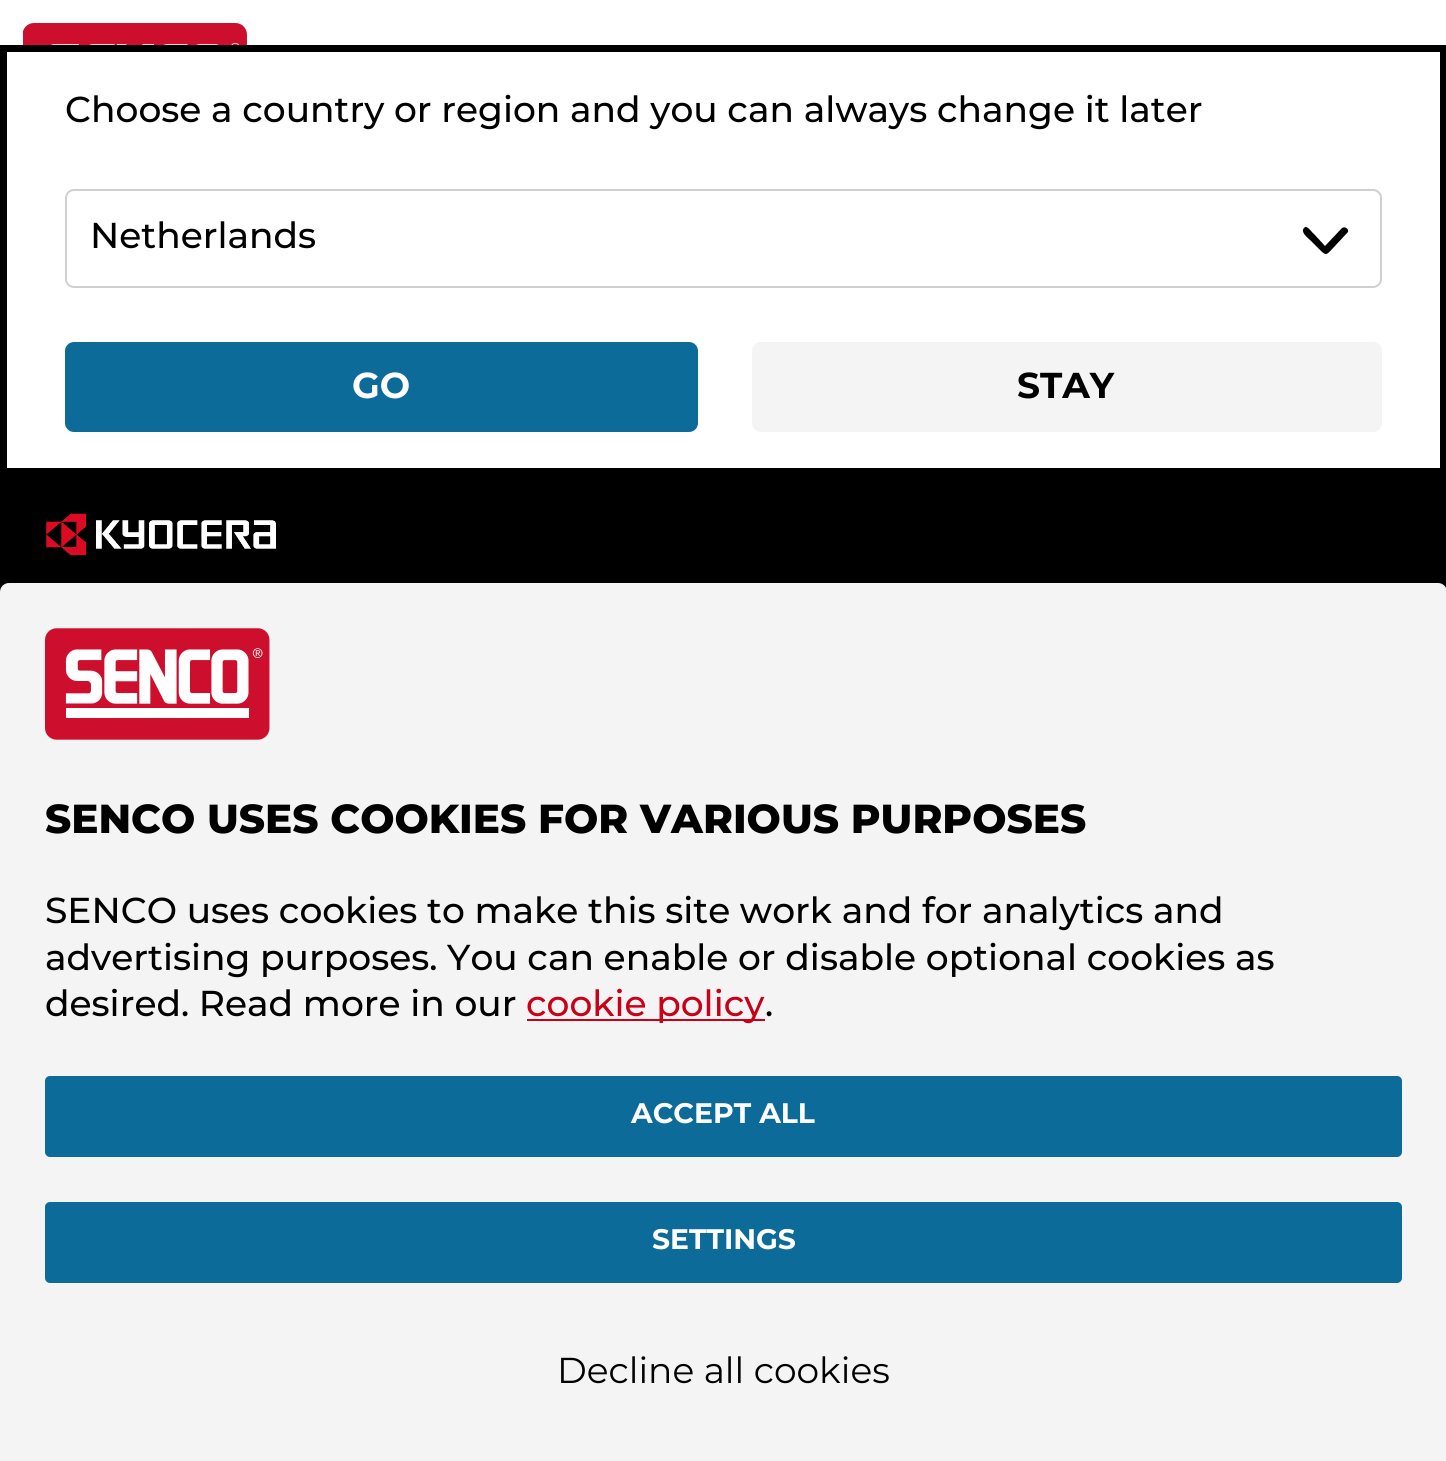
import math
import cairo



def rounded_rect(context, x, y, w, h, r):
    context.new_sub_path()
    for i, (u, v) in enumerate([(x + w - r, y + h - r), (x + r, y + h - r), (x + r, y + r), (x + w - r, y + r)]):
        context.arc(u, v, r, i * math.pi / 2, (i + 1) * math.pi / 2)
    context.close_path()


def draw_image(context, path, x, y, w, h):
    context.save()
    context.set_source_surface(cairo.ImageSurface.create_from_png(path), x, y)
    context.rectangle(x, y, w, h)
    context.fill()
    context.restore()


def draw(context):
    context.set_source_rgb(0, 0, 0)
    context.paint()
    context.set_source_rgb(1, 1, 1)
    context.rectangle(0, 0, 1446, 45)
    context.fill()
    draw_image(context, "images/1.png", 23, 23, 224, 22)
    context.rectangle(7, 52, 1433, 416)
    context.fill()
    rounded_rect(context, 66, 190, 1315, 97, 8)
    context.set_source_rgb(208 / 255, 208 / 255, 208 / 255)
    context.stroke()
    context.set_source_rgb(0, 0, 0)
    context.set_fill_rule(cairo.FillRule.EVEN_ODD)
    context.new_path()
    context.move_to(1304, 228)
    context.curve_to(1307, 224, 1312, 233, 1314, 234)
    context.line_to(1325, 246)
    context.line_to(1342, 228)
    context.curve_to(1345, 226, 1349, 229, 1348, 232)
    context.line_to(1334, 247)
    context.curve_to(1327, 254, 1327, 257, 1320, 250)
    context.line_to(1310, 240)
    context.curve_to(1308, 238, 1300, 232, 1304, 228)
    context.close_path()
    context.fill()
    context.set_source_rgb(12 / 255, 107 / 255, 153 / 255)
    rounded_rect(context, 65, 342, 633, 90, 9)
    context.fill()
    context.set_source_rgb(244 / 255, 244 / 255, 244 / 255)
    rounded_rect(context, 752, 342, 630, 90, 9)
    context.fill()
    draw_image(context, "images/2.png", 46, 513, 230, 43)
    context.new_path()
    context.move_to(9, 583)
    context.line_to(1438, 583)
    context.curve_to(1443, 583, 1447, 587, 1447, 592)
    context.line_to(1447, 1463)
    context.line_to(0, 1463)
    context.line_to(0, 592)
    context.curve_to(0, 587, 4, 583, 9, 583)
    context.close_path()
    context.fill()
    draw_image(context, "images/3.png", 45, 628, 225, 112)
    context.set_source_rgb(201 / 255, 0, 23 / 255)
    context.rectangle(527, 1019, 238, 2)
    context.fill()
    context.set_source_rgb(12 / 255, 107 / 255, 153 / 255)
    rounded_rect(context, 45, 1076, 1357, 81, 5)
    context.fill()
    rounded_rect(context, 45, 1202, 1357, 81, 5)
    context.fill()
    context.select_font_face("Montserrat Medium")
    context.set_font_size(36)
    context.set_source_rgb(0, 0, 0)
    context.move_to(65, 122)
    context.show_text("Choose a country or region and you can always change it later")
    context.move_to(90, 248)
    context.show_text("Netherlands")
    context.select_font_face("Montserrat", cairo.FontSlant.NORMAL, cairo.FontWeight.BOLD)
    context.set_source_rgb(1, 1, 1)
    context.move_to(352, 398)
    context.show_text("GO")
    context.set_source_rgb(0, 0, 0)
    context.move_to(1017, 398)
    context.show_text("STAY")
    context.select_font_face("Montserrat ExtraBold")
    context.set_font_size(40.5)
    context.move_to(45, 833)
    context.show_text("SENCO USES COOKIES FOR VARIOUS PURPOSES")
    context.select_font_face("Montserrat Medium")
    context.set_font_size(36)
    context.move_to(45, 923)
    context.show_text("SENCO uses cookies to make this site work and for analytics and")
    context.move_to(45, 970)
    context.show_text("advertising purposes. You can enable or disable optional cookies as")
    context.move_to(45, 1016)
    context.show_text("desired. Read more in our")
    context.set_source_rgb(201 / 255, 0, 23 / 255)
    context.move_to(526, 1016)
    context.show_text("cookie policy")
    context.set_source_rgb(0, 0, 0)
    context.move_to(765, 1016)
    context.show_text(".")
    context.select_font_face("Montserrat", cairo.FontSlant.NORMAL, cairo.FontWeight.BOLD)
    context.set_font_size(28.25)
    context.set_source_rgb(1, 1, 1)
    context.move_to(631, 1123)
    context.show_text("ACCEPT ALL")
    context.move_to(652, 1249)
    context.show_text("SETTINGS")
    context.select_font_face("Montserrat")
    context.set_font_size(36)
    context.set_source_rgb(0, 0, 0)
    context.move_to(557, 1383)
    context.show_text("Decline all cookies")


surface = cairo.ImageSurface(cairo.Format.RGB24, 1446, 1461)
context = cairo.Context(surface)
options = cairo.FontOptions()
options.set_hint_metrics(cairo.HintMetrics.OFF)
options.set_hint_style(cairo.HintStyle.NONE)
context.set_font_options(options)
context.set_miter_limit(4)
draw(context)
surface.write_to_png("out.png")
